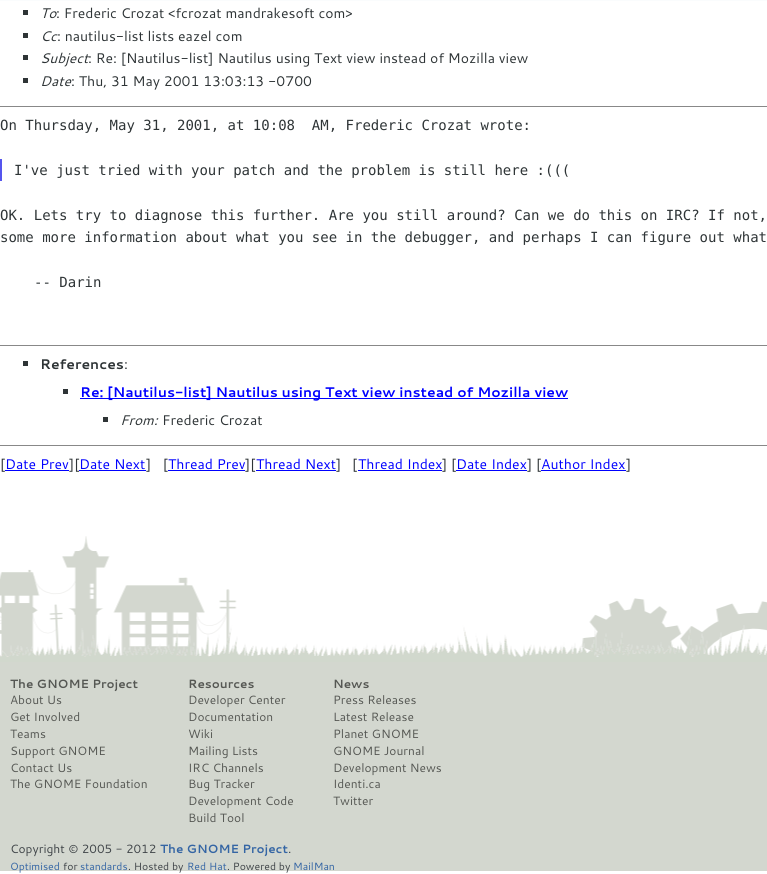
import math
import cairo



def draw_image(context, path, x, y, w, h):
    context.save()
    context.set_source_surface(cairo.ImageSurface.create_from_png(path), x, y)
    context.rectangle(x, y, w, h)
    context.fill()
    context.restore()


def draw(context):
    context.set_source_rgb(1, 1, 1)
    context.paint()
    context.set_source_rgb(250 / 255, 252 / 255, 253 / 255)
    context.rectangle(0, 0, 767, 1)
    context.fill()
    context.set_source_rgb(46 / 255, 52 / 255, 54 / 255)
    context.rectangle(23, 10, 5, 5)
    context.fill()
    context.rectangle(23, 33, 5, 5)
    context.fill()
    context.rectangle(23, 55, 5, 5)
    context.fill()
    context.rectangle(23, 78, 5, 5)
    context.fill()
    context.set_source_rgb(136 / 255, 136 / 255, 136 / 255)
    context.rectangle(0, 106, 767, 1)
    context.fill()
    context.set_source_rgb(85 / 255, 85 / 255, 238 / 255)
    context.rectangle(0, 159, 2, 22)
    context.fill()
    context.set_source_rgb(136 / 255, 136 / 255, 136 / 255)
    context.rectangle(0, 345, 767, 1)
    context.fill()
    context.set_source_rgb(46 / 255, 52 / 255, 54 / 255)
    context.rectangle(23, 361, 5, 5)
    context.fill()
    context.rectangle(63, 389, 5, 5)
    context.fill()
    context.set_source_rgb(0, 0, 1)
    context.rectangle(80, 398, 488, 1)
    context.fill()
    context.set_source_rgb(46 / 255, 52 / 255, 54 / 255)
    context.rectangle(103, 417, 5, 5)
    context.fill()
    context.set_source_rgb(136 / 255, 136 / 255, 136 / 255)
    context.rectangle(0, 445, 767, 1)
    context.fill()
    context.set_source_rgb(0, 0, 1)
    context.rectangle(5, 470, 64, 1)
    context.fill()
    context.rectangle(168, 470, 77, 1)
    context.fill()
    context.rectangle(256, 470, 80, 1)
    context.fill()
    context.rectangle(358, 470, 84, 1)
    context.fill()
    context.rectangle(456, 470, 71, 1)
    context.fill()
    context.rectangle(541, 470, 85, 1)
    context.fill()
    draw_image(context, "images/1.png", 0, 536, 767, 120)
    draw_image(context, "images/2.png", 0, 625, 767, 37)
    context.set_source_rgb(211 / 255, 215 / 255, 207 / 255)
    context.rectangle(0, 662, 767, 209)
    context.fill()
    context.select_font_face("Cantarell", cairo.FontSlant.ITALIC)
    context.set_font_size(14)
    context.set_source_rgb(46 / 255, 52 / 255, 54 / 255)
    context.move_to(40, 18)
    context.show_text("To")
    context.select_font_face("Cantarell")
    context.move_to(56, 18)
    context.show_text(": Frederic Crozat <fcrozat mandrakesoft com>")
    context.select_font_face("Cantarell", cairo.FontSlant.ITALIC)
    context.move_to(40, 41)
    context.show_text("Cc")
    context.select_font_face("Cantarell")
    context.move_to(57, 41)
    context.show_text(": nautilus-list lists eazel com")
    context.select_font_face("Cantarell", cairo.FontSlant.ITALIC)
    context.move_to(40, 63)
    context.show_text("Subject")
    context.select_font_face("Cantarell")
    context.move_to(88, 63)
    context.show_text(": Re: [Nautilus-list] Nautilus using Text view instead of Mozilla view")
    context.select_font_face("Cantarell", cairo.FontSlant.ITALIC)
    context.move_to(40, 86)
    context.show_text("Date")
    context.select_font_face("Cantarell")
    context.move_to(71, 86)
    context.show_text(": Thu, 31 May 2001 13:03:13 -0700")
    context.select_font_face("DejaVu Sans Mono")
    context.move_to(0, 130)
    context.show_text("On Thursday, May 31, 2001, at 10:08  AM, Frederic Crozat wrote:")
    context.move_to(14, 175)
    context.show_text("I've just tried with your patch and the problem is still here :(((")
    context.move_to(0, 220)
    context.show_text("OK. Lets try to diagnose this further. Are you still around? Can we do this on IRC? If not,")
    context.move_to(0, 242)
    context.show_text("some more information about what you see in the debugger, and perhaps I can figure out what")
    context.move_to(34, 287)
    context.show_text("-- Darin")
    context.select_font_face("Cantarell", cairo.FontSlant.NORMAL, cairo.FontWeight.BOLD)
    context.move_to(40, 369)
    context.show_text("References")
    context.select_font_face("Cantarell")
    context.move_to(124, 369)
    context.show_text(":")
    context.select_font_face("Cantarell", cairo.FontSlant.NORMAL, cairo.FontWeight.BOLD)
    context.set_source_rgb(0, 0, 1)
    context.move_to(80, 397)
    context.show_text("Re: [Nautilus-list] Nautilus using Text view instead of Mozilla view")
    context.select_font_face("Cantarell", cairo.FontSlant.ITALIC)
    context.set_source_rgb(46 / 255, 52 / 255, 54 / 255)
    context.move_to(120, 425)
    context.show_text("From:")
    context.select_font_face("Cantarell")
    context.move_to(162, 425)
    context.show_text("Frederic Crozat")
    context.move_to(0, 469)
    context.show_text("[")
    context.set_source_rgb(0, 0, 1)
    context.move_to(5, 469)
    context.show_text("Date Prev")
    context.set_source_rgb(46 / 255, 52 / 255, 54 / 255)
    context.move_to(69, 469)
    context.show_text("][")
    context.set_source_rgb(0, 0, 1)
    context.move_to(79, 469)
    context.show_text("Date Next")
    context.rectangle(79, 470, 67, 1)
    context.fill()
    context.set_source_rgb(46 / 255, 52 / 255, 54 / 255)
    context.move_to(146, 469)
    context.show_text("]   [")
    context.set_source_rgb(0, 0, 1)
    context.move_to(168, 469)
    context.show_text("Thread Prev")
    context.set_source_rgb(46 / 255, 52 / 255, 54 / 255)
    context.move_to(245, 469)
    context.show_text("][")
    context.set_source_rgb(0, 0, 1)
    context.move_to(256, 469)
    context.show_text("Thread Next")
    context.set_source_rgb(46 / 255, 52 / 255, 54 / 255)
    context.move_to(336, 469)
    context.show_text("]")
    context.move_to(352, 469)
    context.show_text("[")
    context.set_source_rgb(0, 0, 1)
    context.move_to(358, 469)
    context.show_text("Thread Index")
    context.set_source_rgb(46 / 255, 52 / 255, 54 / 255)
    context.move_to(442, 469)
    context.show_text("] [")
    context.set_source_rgb(0, 0, 1)
    context.move_to(456, 469)
    context.show_text("Date Index")
    context.set_source_rgb(46 / 255, 52 / 255, 54 / 255)
    context.move_to(527, 469)
    context.show_text("] [")
    context.set_source_rgb(0, 0, 1)
    context.move_to(541, 469)
    context.show_text("Author Index")
    context.set_source_rgb(46 / 255, 52 / 255, 54 / 255)
    context.move_to(626, 469)
    context.show_text("]")
    context.select_font_face("Cantarell", cairo.FontSlant.NORMAL, cairo.FontWeight.BOLD)
    context.set_font_size(12)
    context.set_source_rgb(85 / 255, 87 / 255, 83 / 255)
    context.move_to(10, 688)
    context.show_text("The GNOME Project")
    context.select_font_face("Cantarell")
    context.move_to(10, 704)
    context.show_text("About Us")
    context.move_to(10, 721)
    context.show_text("Get Involved")
    context.move_to(10, 738)
    context.show_text("Teams")
    context.move_to(10, 755)
    context.show_text("Support GNOME")
    context.move_to(10, 772)
    context.show_text("Contact Us")
    context.move_to(10, 788)
    context.show_text("The GNOME Foundation")
    context.select_font_face("Cantarell", cairo.FontSlant.NORMAL, cairo.FontWeight.BOLD)
    context.move_to(188, 688)
    context.show_text("Resources")
    context.select_font_face("Cantarell")
    context.move_to(188, 704)
    context.show_text("Developer Center")
    context.move_to(188, 721)
    context.show_text("Documentation")
    context.move_to(188, 738)
    context.show_text("Wiki")
    context.move_to(188, 755)
    context.show_text("Mailing Lists")
    context.move_to(188, 772)
    context.show_text("IRC Channels")
    context.move_to(188, 788)
    context.show_text("Bug Tracker")
    context.move_to(188, 805)
    context.show_text("Development Code")
    context.move_to(188, 822)
    context.show_text("Build Tool")
    context.select_font_face("Cantarell", cairo.FontSlant.NORMAL, cairo.FontWeight.BOLD)
    context.move_to(333, 688)
    context.show_text("News")
    context.select_font_face("Cantarell")
    context.move_to(333, 704)
    context.show_text("Press Releases")
    context.move_to(333, 721)
    context.show_text("Latest Release")
    context.move_to(333, 738)
    context.show_text("Planet GNOME")
    context.move_to(333, 755)
    context.show_text("GNOME Journal")
    context.move_to(333, 772)
    context.show_text("Development News")
    context.move_to(333, 788)
    context.show_text("Identi.ca")
    context.move_to(333, 805)
    context.show_text("Twitter")
    context.set_source_rgb(63 / 255, 68 / 255, 72 / 255)
    context.move_to(10, 853)
    context.show_text("Copyright © 2005 - 2012")
    context.select_font_face("Cantarell", cairo.FontSlant.NORMAL, cairo.FontWeight.BOLD)
    context.set_source_rgb(52 / 255, 101 / 255, 164 / 255)
    context.move_to(160, 853)
    context.show_text("The GNOME Project")
    context.select_font_face("Cantarell")
    context.set_source_rgb(63 / 255, 68 / 255, 72 / 255)
    context.move_to(288, 853)
    context.show_text(".")
    context.set_font_size(10.5)
    context.set_source_rgb(52 / 255, 101 / 255, 164 / 255)
    context.move_to(10, 870)
    context.show_text("Optimised")
    context.set_source_rgb(63 / 255, 68 / 255, 72 / 255)
    context.move_to(63, 870)
    context.show_text("for")
    context.set_source_rgb(52 / 255, 101 / 255, 164 / 255)
    context.move_to(80, 870)
    context.show_text("standards")
    context.set_source_rgb(63 / 255, 68 / 255, 72 / 255)
    context.move_to(128, 870)
    context.show_text(". Hosted by")
    context.set_source_rgb(52 / 255, 101 / 255, 164 / 255)
    context.move_to(187, 870)
    context.show_text("Red Hat")
    context.set_source_rgb(63 / 255, 68 / 255, 72 / 255)
    context.move_to(227, 870)
    context.show_text(". Powered by")
    context.set_source_rgb(52 / 255, 101 / 255, 164 / 255)
    context.move_to(293, 870)
    context.show_text("MailMan")


surface = cairo.ImageSurface(cairo.Format.RGB24, 767, 874)
context = cairo.Context(surface)
options = cairo.FontOptions()
options.set_hint_metrics(cairo.HintMetrics.OFF)
options.set_hint_style(cairo.HintStyle.NONE)
context.set_font_options(options)
context.set_miter_limit(4)
draw(context)
surface.write_to_png("out.png")
